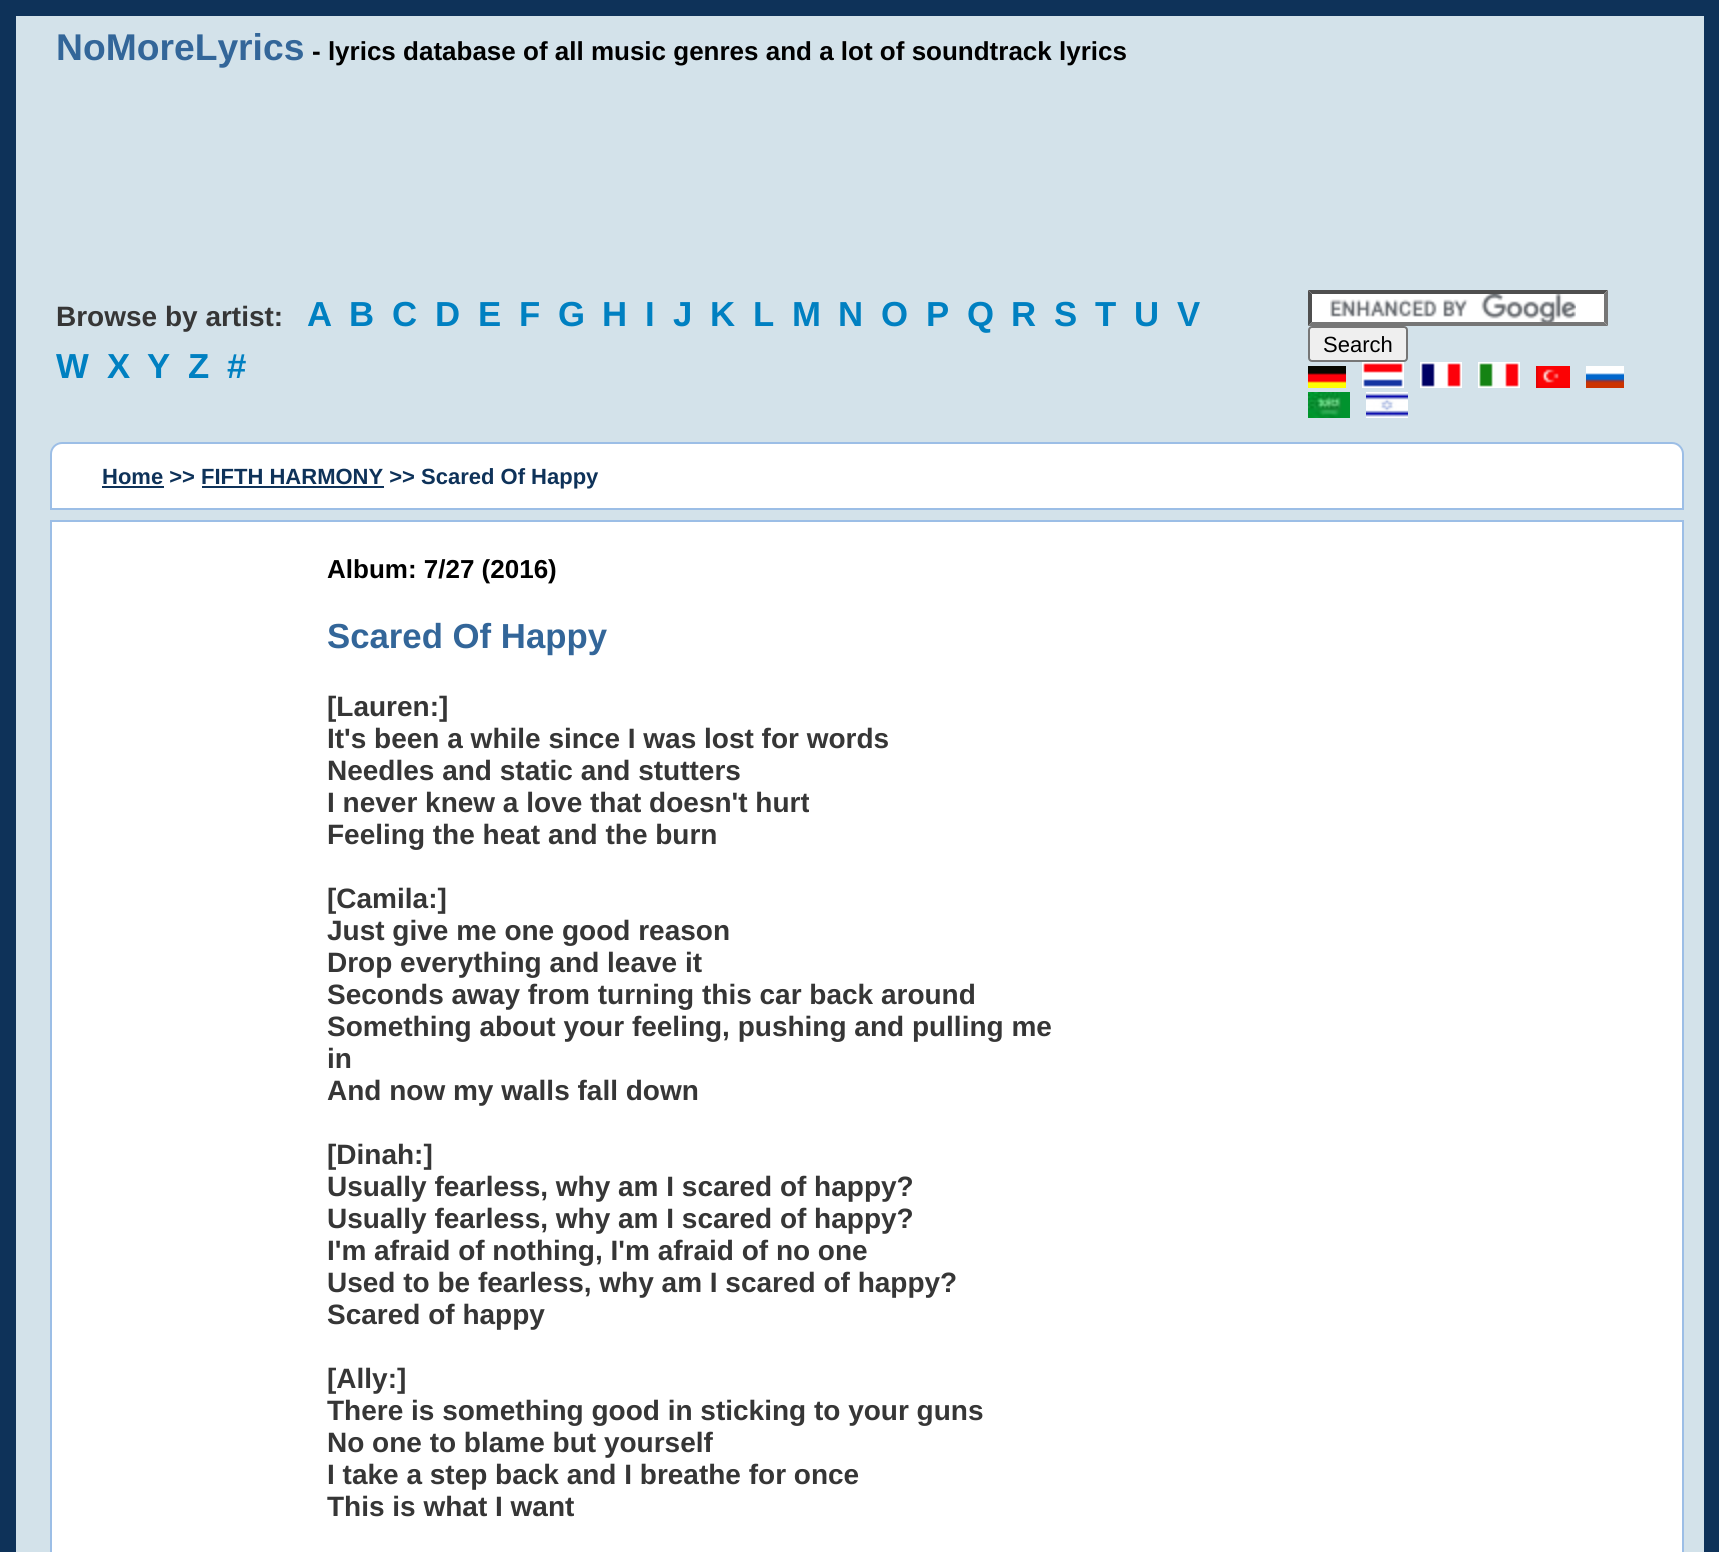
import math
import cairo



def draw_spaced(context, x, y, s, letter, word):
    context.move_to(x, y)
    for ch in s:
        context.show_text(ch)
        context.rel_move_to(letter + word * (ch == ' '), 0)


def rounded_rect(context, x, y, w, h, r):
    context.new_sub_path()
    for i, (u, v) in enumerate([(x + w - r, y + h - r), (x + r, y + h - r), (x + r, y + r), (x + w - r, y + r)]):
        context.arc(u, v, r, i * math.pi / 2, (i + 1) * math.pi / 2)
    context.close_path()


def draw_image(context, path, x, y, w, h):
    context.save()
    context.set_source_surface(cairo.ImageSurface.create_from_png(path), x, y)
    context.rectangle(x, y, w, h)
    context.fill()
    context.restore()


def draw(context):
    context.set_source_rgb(14 / 255, 50 / 255, 89 / 255)
    context.paint()
    context.set_source_rgb(211 / 255, 226 / 255, 234 / 255)
    context.rectangle(16, 16, 1688, 1536)
    context.fill()
    context.set_source_rgb(1, 1, 1)
    context.rectangle(1308, 290, 300, 36)
    context.fill()
    draw_image(context, "images/1.png", 1330, 294, 246, 28)
    context.set_source_rgb(79 / 255, 79 / 255, 79 / 255)
    context.new_path()
    context.move_to(1308, 290)
    context.line_to(1608, 290)
    context.line_to(1604, 294)
    context.line_to(1312, 294)
    context.close_path()
    context.fill()
    context.set_source_rgb(118 / 255, 118 / 255, 118 / 255)
    context.new_path()
    context.move_to(1608, 290)
    context.line_to(1608, 326)
    context.line_to(1604, 322)
    context.line_to(1604, 294)
    context.close_path()
    context.fill()
    context.new_path()
    context.move_to(1608, 326)
    context.line_to(1308, 326)
    context.line_to(1312, 322)
    context.line_to(1604, 322)
    context.close_path()
    context.fill()
    context.set_source_rgb(79 / 255, 79 / 255, 79 / 255)
    context.new_path()
    context.move_to(1308, 326)
    context.line_to(1308, 290)
    context.line_to(1312, 294)
    context.line_to(1312, 322)
    context.close_path()
    context.fill()
    context.set_source_rgb(239 / 255, 239 / 255, 239 / 255)
    rounded_rect(context, 1309, 327, 98, 34, 3)
    context.fill_preserve()
    context.set_source_rgb(118 / 255, 118 / 255, 118 / 255)
    context.stroke()
    draw_image(context, "images/2.png", 1308, 366, 38, 22)
    draw_image(context, "images/3.png", 1362, 362, 42, 26)
    draw_image(context, "images/4.png", 1420, 362, 42, 26)
    draw_image(context, "images/5.png", 1478, 362, 42, 26)
    draw_image(context, "images/6.png", 1536, 366, 34, 22)
    draw_image(context, "images/7.png", 1586, 366, 38, 22)
    draw_image(context, "images/8.png", 1308, 392, 42, 26)
    draw_image(context, "images/9.png", 1366, 392, 42, 26)
    context.set_source_rgb(1, 1, 1)
    context.new_path()
    context.move_to(62, 443)
    context.line_to(1672, 443)
    context.curve_to(1678, 443, 1683, 448, 1683, 454)
    context.line_to(1683, 509)
    context.line_to(51, 509)
    context.line_to(51, 454)
    context.curve_to(51, 448, 56, 443, 62, 443)
    context.close_path()
    context.fill_preserve()
    context.set_source_rgb(156 / 255, 190 / 255, 230 / 255)
    context.stroke()
    context.set_source_rgb(14 / 255, 50 / 255, 89 / 255)
    context.rectangle(102, 486, 62, 2)
    context.fill()
    context.rectangle(202, 486, 182, 2)
    context.fill()
    context.set_source_rgb(1, 1, 1)
    context.rectangle(51, 521, 1632, 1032)
    context.fill_preserve()
    context.set_source_rgb(156 / 255, 190 / 255, 230 / 255)
    context.stroke()
    context.select_font_face("Liberation Sans", cairo.FontSlant.NORMAL, cairo.FontWeight.BOLD)
    context.set_font_size(37.25)
    context.set_source_rgb(51 / 255, 102 / 255, 153 / 255)
    context.move_to(56, 60)
    context.show_text("NoMoreLyrics")
    context.set_font_size(26)
    context.set_source_rgb(0, 0, 0)
    context.move_to(312, 60)
    context.show_text("- lyrics database of all music genres and a lot of soundtrack lyrics")
    context.set_font_size(28)
    context.set_source_rgb(54 / 255, 54 / 255, 54 / 255)
    context.move_to(56, 326)
    context.show_text("Browse by artist:")
    context.set_font_size(34.75)
    context.set_source_rgb(0, 128 / 255, 193 / 255)
    draw_spaced(context, 307, 326, "A", 10, 0)
    draw_spaced(context, 349, 326, "B", 10, 0)
    draw_spaced(context, 392, 326, "C", 10, 0)
    draw_spaced(context, 435, 326, "D", 10, 0)
    draw_spaced(context, 478, 326, "E", 10, 0)
    draw_spaced(context, 519, 326, "F", 10, 0)
    draw_spaced(context, 558, 326, "G", 10, 0)
    draw_spaced(context, 602, 326, "H", 10, 0)
    draw_spaced(context, 645, 326, "I", 10, 0)
    draw_spaced(context, 673, 326, "J", 10, 0)
    draw_spaced(context, 710, 326, "K", 10, 0)
    draw_spaced(context, 753, 326, "L", 10, 0)
    draw_spaced(context, 792, 326, "M", 10, 0)
    draw_spaced(context, 838, 326, "N", 10, 0)
    draw_spaced(context, 881, 326, "O", 10, 0)
    draw_spaced(context, 926, 326, "P", 10, 0)
    draw_spaced(context, 967, 326, "Q", 10, 0)
    draw_spaced(context, 1011, 326, "R", 10, 0)
    draw_spaced(context, 1054, 326, "S", 10, 0)
    draw_spaced(context, 1095, 326, "T", 10, 0)
    draw_spaced(context, 1134, 326, "U", 10, 0)
    draw_spaced(context, 1177, 326, "V", 10, 0)
    draw_spaced(context, 56, 378, "W", 10, 0)
    draw_spaced(context, 107, 378, "X", 10, 0)
    draw_spaced(context, 147, 378, "Y", 10, 0)
    draw_spaced(context, 188, 378, "Z", 10, 0)
    draw_spaced(context, 227, 378, "#", 10, 0)
    context.select_font_face("Liberation Sans")
    context.set_font_size(22)
    context.set_source_rgb(0, 0, 0)
    context.move_to(1323, 352)
    context.show_text("Search")
    context.select_font_face("Liberation Sans", cairo.FontSlant.NORMAL, cairo.FontWeight.BOLD)
    context.set_source_rgb(14 / 255, 50 / 255, 89 / 255)
    context.move_to(102, 484)
    context.show_text("Home >> FIFTH HARMONY >> Scared Of Happy")
    context.set_font_size(26)
    context.set_source_rgb(0, 0, 0)
    context.move_to(327, 578)
    context.show_text("Album: 7/27 (2016)")
    context.set_font_size(34.75)
    context.set_source_rgb(51 / 255, 102 / 255, 153 / 255)
    context.move_to(327, 648)
    context.show_text("Scared Of Happy")
    context.set_font_size(28)
    context.set_source_rgb(54 / 255, 54 / 255, 54 / 255)
    context.move_to(327, 716)
    context.show_text("[Lauren:]")
    context.move_to(327, 748)
    context.show_text("It's been a while since I was lost for words")
    context.move_to(327, 780)
    context.show_text("Needles and static and stutters")
    context.move_to(327, 812)
    context.show_text("I never knew a love that doesn't hurt")
    context.move_to(327, 844)
    context.show_text("Feeling the heat and the burn")
    context.move_to(327, 908)
    context.show_text("[Camila:]")
    context.move_to(327, 940)
    context.show_text("Just give me one good reason")
    context.move_to(327, 972)
    context.show_text("Drop everything and leave it")
    context.move_to(327, 1004)
    context.show_text("Seconds away from turning this car back around")
    context.move_to(327, 1036)
    context.show_text("Something about your feeling, pushing and pulling me")
    context.move_to(327, 1068)
    context.show_text("in")
    context.move_to(327, 1100)
    context.show_text("And now my walls fall down")
    context.move_to(327, 1164)
    context.show_text("[Dinah:]")
    context.move_to(327, 1196)
    context.show_text("Usually fearless, why am I scared of happy?")
    context.move_to(327, 1228)
    context.show_text("Usually fearless, why am I scared of happy?")
    context.move_to(327, 1260)
    context.show_text("I'm afraid of nothing, I'm afraid of no one")
    context.move_to(327, 1292)
    context.show_text("Used to be fearless, why am I scared of happy?")
    context.move_to(327, 1324)
    context.show_text("Scared of happy")
    context.move_to(327, 1388)
    context.show_text("[Ally:]")
    context.move_to(327, 1420)
    context.show_text("There is something good in sticking to your guns")
    context.move_to(327, 1452)
    context.show_text("No one to blame but yourself")
    context.move_to(327, 1484)
    context.show_text("I take a step back and I breathe for once")
    context.move_to(327, 1516)
    context.show_text("This is what I want")


surface = cairo.ImageSurface(cairo.Format.RGB24, 1719, 1552)
context = cairo.Context(surface)
options = cairo.FontOptions()
options.set_hint_metrics(cairo.HintMetrics.OFF)
options.set_hint_style(cairo.HintStyle.NONE)
context.set_font_options(options)
context.set_miter_limit(4)
draw(context)
surface.write_to_png("out.png")
